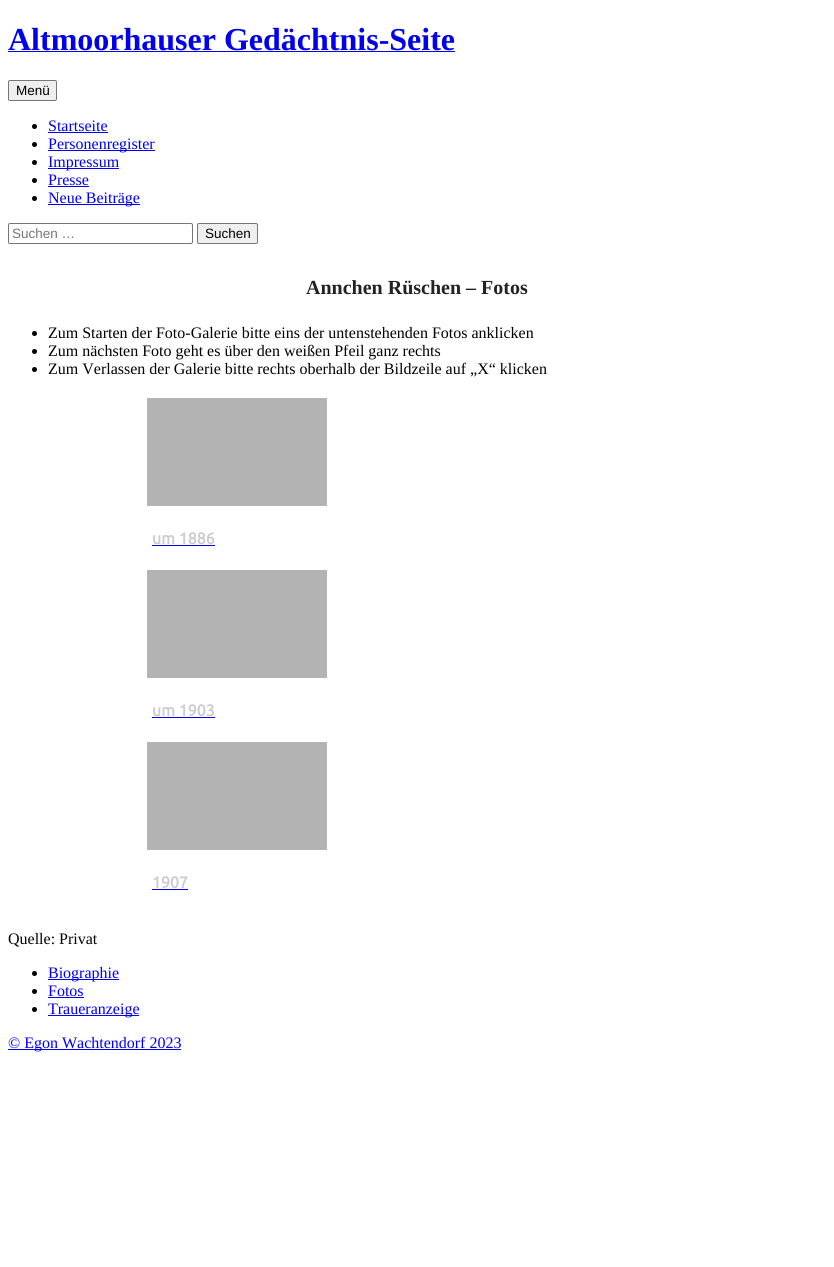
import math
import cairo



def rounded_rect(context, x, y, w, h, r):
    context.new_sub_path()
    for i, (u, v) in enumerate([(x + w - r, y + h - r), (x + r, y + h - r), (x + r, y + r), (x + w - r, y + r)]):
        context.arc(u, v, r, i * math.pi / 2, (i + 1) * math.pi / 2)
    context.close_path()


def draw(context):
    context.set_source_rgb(1, 1, 1)
    context.paint()
    context.set_source_rgb(0, 0, 238 / 255)
    context.rectangle(8, 51, 447, 1)
    context.fill()
    context.set_source_rgb(239 / 255, 239 / 255, 239 / 255)
    rounded_rect(context, 8.5, 80.5, 48, 20, 1.5)
    context.fill_preserve()
    context.set_source_rgb(118 / 255, 118 / 255, 118 / 255)
    context.set_line_width(1)
    context.stroke()
    context.set_source_rgb(0, 0, 0)
    context.arc(34.5, 126.5, 2.5, 0, 2 * math.pi)
    context.fill()
    context.set_source_rgb(0, 0, 238 / 255)
    context.rectangle(48, 132, 60, 1)
    context.fill()
    context.set_source_rgb(0, 0, 0)
    context.arc(34.5, 144.5, 2.5, 0, 2 * math.pi)
    context.fill()
    context.set_source_rgb(0, 0, 238 / 255)
    context.rectangle(48, 150, 107, 1)
    context.fill()
    context.set_source_rgb(0, 0, 0)
    context.arc(34.5, 162.5, 2.5, 0, 2 * math.pi)
    context.fill()
    context.set_source_rgb(0, 0, 238 / 255)
    context.rectangle(48, 168, 71, 1)
    context.fill()
    context.set_source_rgb(0, 0, 0)
    context.arc(34.5, 180.5, 2.5, 0, 2 * math.pi)
    context.fill()
    context.set_source_rgb(0, 0, 238 / 255)
    context.rectangle(48, 186, 41, 1)
    context.fill()
    context.set_source_rgb(0, 0, 0)
    context.arc(34.5, 198.5, 2.5, 0, 2 * math.pi)
    context.fill()
    context.set_source_rgb(0, 0, 238 / 255)
    context.rectangle(48, 204, 92, 1)
    context.fill()
    rounded_rect(context, 8.5, 223.5, 184, 20, 1.5)
    context.set_source_rgb(118 / 255, 118 / 255, 118 / 255)
    context.stroke()
    context.set_source_rgb(239 / 255, 239 / 255, 239 / 255)
    rounded_rect(context, 197.5, 223.5, 60, 20, 1.5)
    context.fill_preserve()
    context.set_source_rgb(118 / 255, 118 / 255, 118 / 255)
    context.stroke()
    context.set_source_rgb(0, 0, 0)
    context.arc(34.5, 333.5, 2.5, 0, 2 * math.pi)
    context.fill()
    context.arc(34.5, 351.5, 2.5, 0, 2 * math.pi)
    context.fill()
    context.arc(34.5, 369.5, 2.5, 0, 2 * math.pi)
    context.fill()
    context.set_source_rgb(179 / 255, 179 / 255, 179 / 255)
    context.rectangle(147, 398, 180, 108)
    context.fill()
    context.set_source_rgb(0, 0, 238 / 255)
    context.rectangle(152, 545, 63, 1)
    context.fill()
    context.set_source_rgb(179 / 255, 179 / 255, 179 / 255)
    context.rectangle(147, 570, 180, 108)
    context.fill()
    context.set_source_rgb(0, 0, 238 / 255)
    context.rectangle(152, 717, 63, 1)
    context.fill()
    context.set_source_rgb(179 / 255, 179 / 255, 179 / 255)
    context.rectangle(147, 742, 180, 108)
    context.fill()
    context.set_source_rgb(0, 0, 238 / 255)
    context.rectangle(152, 889, 36, 1)
    context.fill()
    context.set_source_rgb(0, 0, 0)
    context.arc(34.5, 973.5, 2.5, 0, 2 * math.pi)
    context.fill()
    context.set_source_rgb(0, 0, 238 / 255)
    context.rectangle(48, 979, 71, 1)
    context.fill()
    context.set_source_rgb(0, 0, 0)
    context.arc(34.5, 991.5, 2.5, 0, 2 * math.pi)
    context.fill()
    context.set_source_rgb(0, 0, 238 / 255)
    context.rectangle(48, 997, 36, 1)
    context.fill()
    context.set_source_rgb(0, 0, 0)
    context.arc(34.5, 1009.5, 2.5, 0, 2 * math.pi)
    context.fill()
    context.set_source_rgb(0, 0, 238 / 255)
    context.rectangle(48, 1015, 91, 1)
    context.fill()
    context.rectangle(8, 1049, 173, 1)
    context.fill()
    context.select_font_face("Liberation Serif", cairo.FontSlant.NORMAL, cairo.FontWeight.BOLD)
    context.set_font_size(32)
    context.move_to(8, 50)
    context.show_text("Altmoorhauser Gedächtnis-Seite")
    context.select_font_face("Liberation Sans")
    context.set_font_size(13.5)
    context.set_source_rgb(0, 0, 0)
    context.move_to(16, 95)
    context.show_text("Menü")
    context.select_font_face("Liberation Serif")
    context.set_font_size(16)
    context.set_source_rgb(0, 0, 238 / 255)
    context.move_to(48, 131)
    context.show_text("Startseite")
    context.move_to(48, 149)
    context.show_text("Personenregister")
    context.move_to(48, 167)
    context.show_text("Impressum")
    context.move_to(48, 185)
    context.show_text("Presse")
    context.move_to(48, 203)
    context.show_text("Neue Beiträge")
    context.select_font_face("Liberation Sans")
    context.set_font_size(13.5)
    context.set_source_rgb(117 / 255, 117 / 255, 117 / 255)
    context.move_to(12, 238)
    context.show_text("Suchen …")
    context.set_source_rgb(0, 0, 0)
    context.move_to(205, 238)
    context.show_text("Suchen")
    context.select_font_face("Liberation Serif", cairo.FontSlant.NORMAL, cairo.FontWeight.BOLD)
    context.set_font_size(20)
    context.set_source_rgb(34 / 255, 34 / 255, 34 / 255)
    context.move_to(306, 294)
    context.show_text("Annchen Rüschen – Fotos")
    context.select_font_face("Liberation Serif")
    context.set_font_size(16)
    context.set_source_rgb(0, 0, 0)
    context.move_to(48, 338)
    context.show_text("Zum Starten der Foto-Galerie bitte eins der untenstehenden Fotos anklicken")
    context.move_to(48, 356)
    context.show_text("Zum nächsten Foto geht es über den weißen Pfeil ganz rechts")
    context.move_to(48, 374)
    context.show_text("Zum Verlassen der Galerie bitte rechts oberhalb der Bildzeile auf „X“ klicken")
    context.select_font_face("Ubuntu", cairo.FontSlant.NORMAL, cairo.FontWeight.BOLD)
    context.set_source_rgb(204 / 255, 204 / 255, 204 / 255)
    context.move_to(152, 544)
    context.show_text("um 1886")
    context.move_to(152, 716)
    context.show_text("um 1903")
    context.move_to(152, 888)
    context.show_text("1907")
    context.select_font_face("Liberation Serif")
    context.set_source_rgb(0, 0, 0)
    context.move_to(8, 944)
    context.show_text("Quelle: Privat")
    context.set_source_rgb(0, 0, 238 / 255)
    context.move_to(48, 978)
    context.show_text("Biographie")
    context.move_to(48, 996)
    context.show_text("Fotos")
    context.move_to(48, 1014)
    context.show_text("Traueranzeige")
    context.move_to(8, 1048)
    context.show_text("© Egon Wachtendorf 2023")


surface = cairo.ImageSurface(cairo.Format.RGB24, 834, 1267)
context = cairo.Context(surface)
options = cairo.FontOptions()
options.set_hint_metrics(cairo.HintMetrics.OFF)
options.set_hint_style(cairo.HintStyle.NONE)
context.set_font_options(options)
context.set_miter_limit(4)
draw(context)
surface.write_to_png("out.png")
